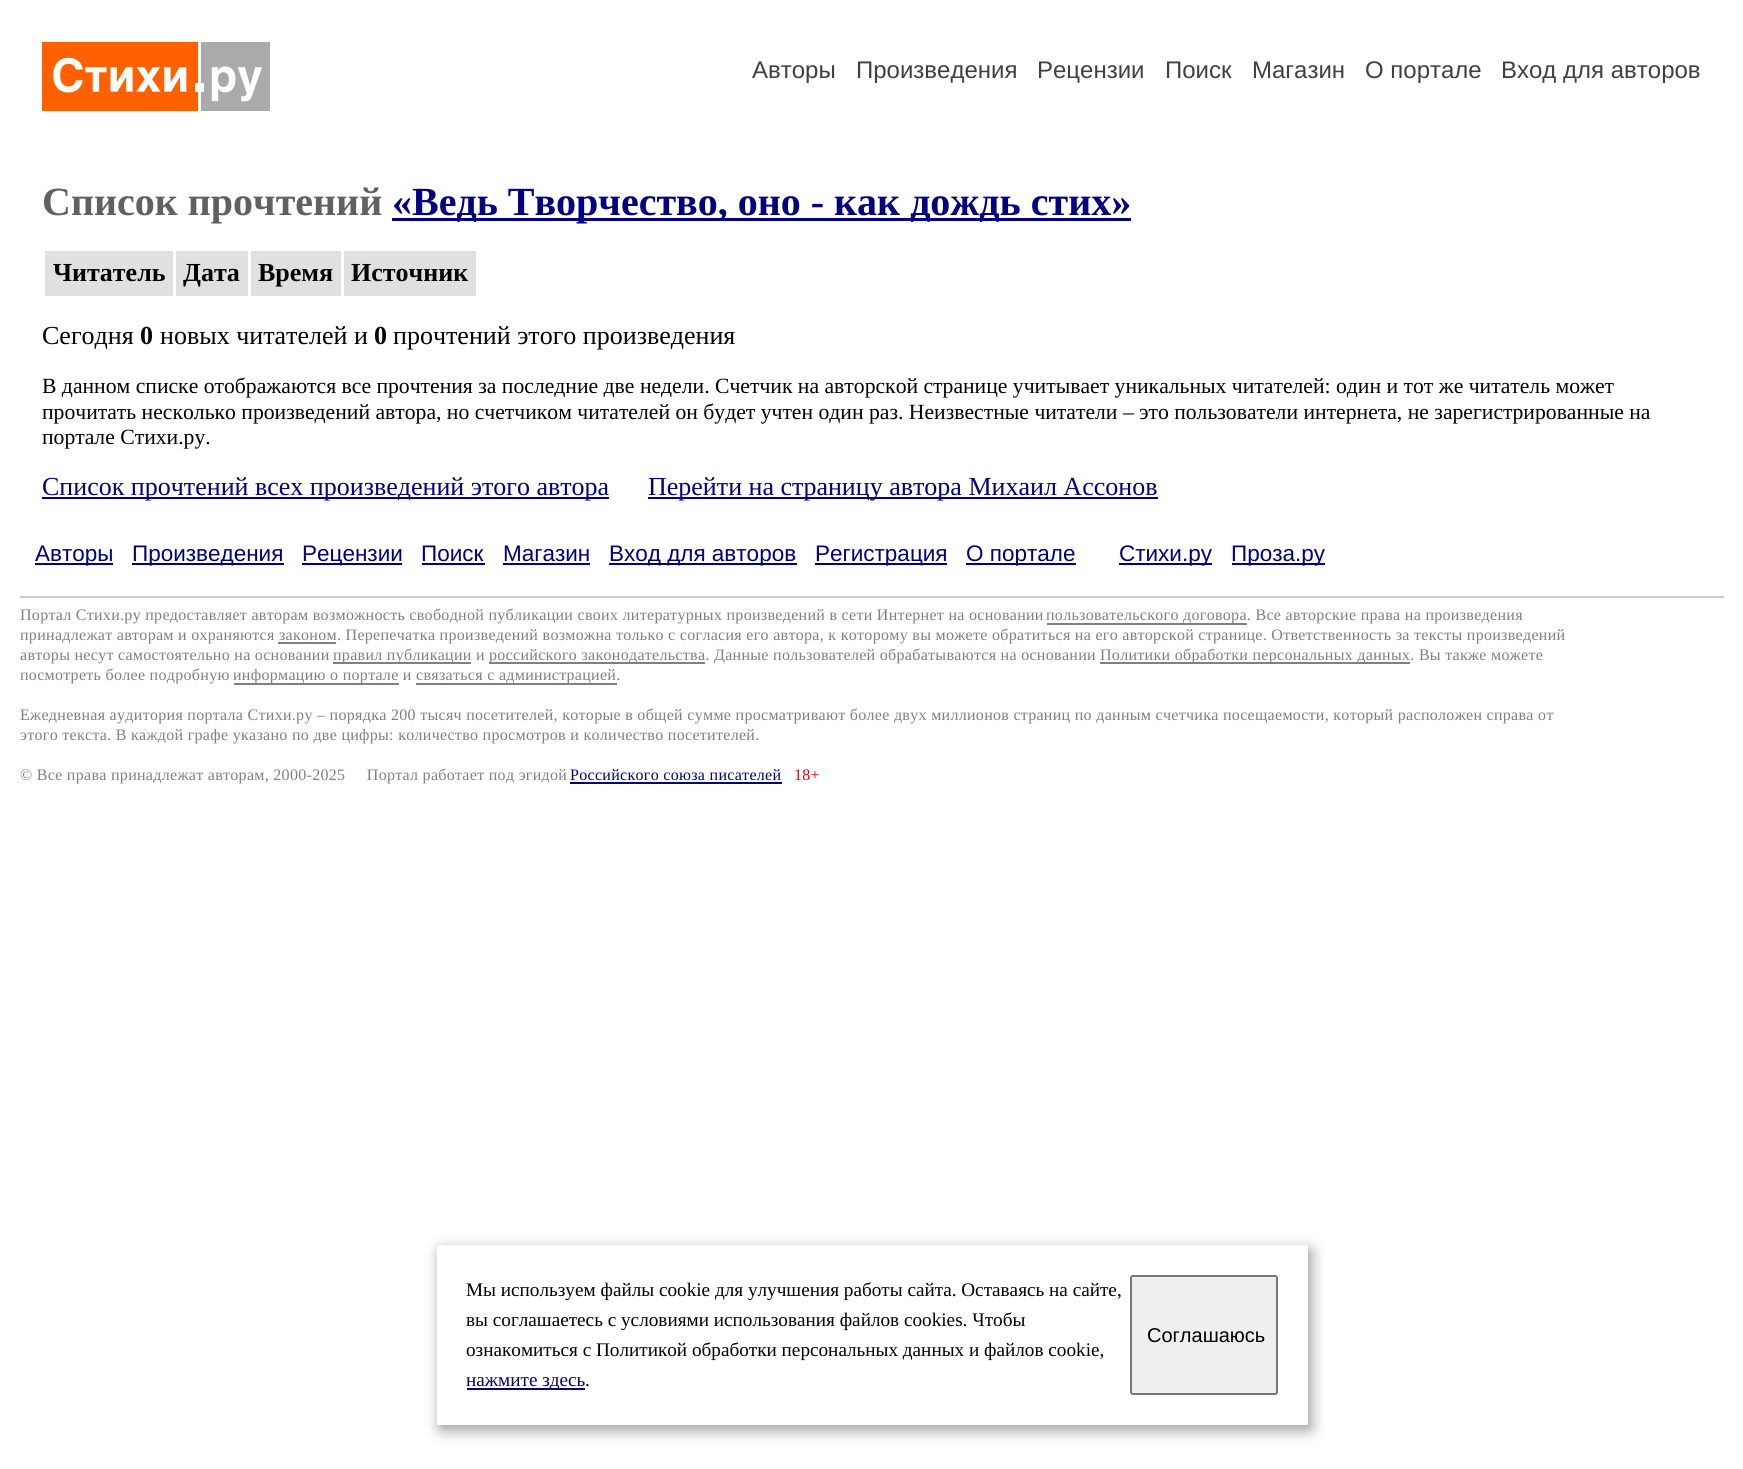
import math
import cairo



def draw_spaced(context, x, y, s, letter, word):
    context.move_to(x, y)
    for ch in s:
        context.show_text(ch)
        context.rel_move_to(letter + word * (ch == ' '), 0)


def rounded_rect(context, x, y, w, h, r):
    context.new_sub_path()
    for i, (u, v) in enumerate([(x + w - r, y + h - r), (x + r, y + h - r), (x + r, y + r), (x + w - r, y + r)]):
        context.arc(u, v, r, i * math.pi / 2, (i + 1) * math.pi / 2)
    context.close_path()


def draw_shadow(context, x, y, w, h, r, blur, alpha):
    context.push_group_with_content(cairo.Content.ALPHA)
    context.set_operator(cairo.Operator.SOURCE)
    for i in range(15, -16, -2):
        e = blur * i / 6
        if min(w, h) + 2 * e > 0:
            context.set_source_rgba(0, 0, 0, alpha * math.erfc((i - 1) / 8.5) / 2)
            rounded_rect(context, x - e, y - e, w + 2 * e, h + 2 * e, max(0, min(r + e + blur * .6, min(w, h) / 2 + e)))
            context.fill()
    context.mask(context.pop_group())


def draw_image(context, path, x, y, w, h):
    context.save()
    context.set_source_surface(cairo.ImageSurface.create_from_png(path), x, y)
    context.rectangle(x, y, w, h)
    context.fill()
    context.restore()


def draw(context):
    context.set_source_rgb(1, 1, 1)
    context.paint()
    draw_image(context, "images/1.png", 42, 42, 228, 69)
    context.set_source_rgb(0, 0, 128 / 255)
    context.rectangle(392, 218, 739, 3)
    context.fill()
    context.set_source_rgb(224 / 255, 224 / 255, 224 / 255)
    context.rectangle(45, 251, 128, 45)
    context.fill()
    context.rectangle(176, 251, 72, 45)
    context.fill()
    context.rectangle(251, 251, 90, 45)
    context.fill()
    context.rectangle(344, 251, 132, 45)
    context.fill()
    context.set_source_rgb(0, 0, 128 / 255)
    context.rectangle(42, 497, 567, 2)
    context.fill()
    context.rectangle(648, 497, 510, 2)
    context.fill()
    context.set_source_rgb(0, 0, 0)
    draw_shadow(context, 440, 1250, 871, 180, 1.5, 7.5, 0.4)
    context.set_source_rgb(1, 1, 1)
    rounded_rect(context, 437, 1245, 871, 180, 1.5)
    context.fill()
    context.set_source_rgb(0, 0, 128 / 255)
    context.rectangle(467, 1388, 118, 2)
    context.fill()
    context.set_source_rgb(239 / 255, 239 / 255, 239 / 255)
    rounded_rect(context, 1131, 1276, 146, 118, 2)
    context.fill_preserve()
    context.set_source_rgb(118 / 255, 118 / 255, 118 / 255)
    context.stroke()
    context.set_source_rgb(0, 0, 128 / 255)
    context.rectangle(35, 563, 78, 2)
    context.fill()
    context.rectangle(132, 563, 152, 2)
    context.fill()
    context.rectangle(302, 563, 100, 2)
    context.fill()
    context.rectangle(422, 563, 63, 2)
    context.fill()
    context.rectangle(503, 563, 87, 2)
    context.fill()
    context.rectangle(609, 563, 188, 2)
    context.fill()
    context.rectangle(815, 563, 132, 2)
    context.fill()
    context.rectangle(966, 563, 110, 2)
    context.fill()
    context.rectangle(1119, 563, 93, 2)
    context.fill()
    context.rectangle(1232, 563, 93, 2)
    context.fill()
    context.set_source_rgb(204 / 255, 204 / 255, 204 / 255)
    context.rectangle(20, 596, 1704, 2)
    context.fill()
    context.set_source_rgb(128 / 255, 128 / 255, 128 / 255)
    context.rectangle(1047, 623, 200, 2)
    context.fill()
    context.rectangle(278, 642, 58, 2)
    context.fill()
    context.rectangle(333, 662, 138, 2)
    context.fill()
    context.rectangle(489, 662, 216, 2)
    context.fill()
    context.rectangle(1100, 662, 310, 2)
    context.fill()
    context.rectangle(234, 683, 165, 2)
    context.fill()
    context.rectangle(416, 683, 201, 2)
    context.fill()
    context.set_source_rgb(0, 0, 128 / 255)
    context.rectangle(570, 782, 212, 2)
    context.fill()
    context.select_font_face("Liberation Sans")
    context.set_font_size(24)
    context.set_source_rgb(64 / 255, 64 / 255, 64 / 255)
    context.move_to(752, 78)
    context.show_text("Авторы")
    context.move_to(856, 78)
    context.show_text("Произведения")
    context.move_to(1037, 78)
    context.show_text("Рецензии")
    context.move_to(1165, 78)
    context.show_text("Поиск")
    context.move_to(1252, 78)
    context.show_text("Магазин")
    context.move_to(1365, 78)
    context.show_text("О портале")
    context.move_to(1501, 78)
    context.show_text("Вход для авторов")
    context.select_font_face("Liberation Serif", cairo.FontSlant.NORMAL, cairo.FontWeight.BOLD)
    context.set_font_size(40)
    context.set_source_rgb(96 / 255, 96 / 255, 96 / 255)
    context.move_to(42, 215)
    context.show_text("Список прочтений")
    context.set_source_rgb(0, 0, 128 / 255)
    context.move_to(392, 215)
    context.show_text("«Ведь Творчество, оно - как дождь стих»")
    context.set_font_size(26)
    context.set_source_rgb(0, 0, 0)
    context.move_to(53, 281)
    context.show_text("Читатель")
    context.move_to(183, 281)
    context.show_text("Дата")
    context.move_to(258, 281)
    context.show_text("Время")
    context.move_to(351, 281)
    context.show_text("Источник")
    context.select_font_face("Liberation Serif")
    context.move_to(42, 344)
    context.show_text("Сегодня")
    context.select_font_face("Liberation Serif", cairo.FontSlant.NORMAL, cairo.FontWeight.BOLD)
    context.move_to(140, 344)
    context.show_text("0")
    context.select_font_face("Liberation Serif")
    context.move_to(160, 344)
    context.show_text("новых читателей и")
    context.select_font_face("Liberation Serif", cairo.FontSlant.NORMAL, cairo.FontWeight.BOLD)
    context.move_to(374, 344)
    context.show_text("0")
    context.select_font_face("Liberation Serif")
    context.move_to(393, 344)
    context.show_text("прочтений этого произведения")
    context.set_font_size(21.67)
    context.move_to(42, 393)
    context.show_text("В данном списке отображаются все прочтения за последние две недели. Счетчик на авторской странице учитывает уникальных читателей: один и тот же читатель может")
    context.move_to(42, 419)
    context.show_text("прочитать несколько произведений автора, но счетчиком читателей он будет учтен один раз. Неизвестные читатели – это пользователи интернета, не зарегистрированные на")
    context.move_to(42, 444)
    context.show_text("портале Стихи.ру.")
    context.set_font_size(26)
    context.set_source_rgb(0, 0, 128 / 255)
    context.move_to(42, 495)
    context.show_text("Список прочтений всех произведений этого автора")
    context.move_to(648, 495)
    context.show_text("Перейти на страницу автора Михаил Ассонов")
    context.set_font_size(19.2)
    context.set_source_rgb(0, 0, 0)
    context.move_to(466, 1296)
    context.show_text("Мы используем файлы cookie для улучшения работы сайта. Оставаясь на сайте,")
    context.move_to(466, 1326)
    context.show_text("вы соглашаетесь с условиями использования файлов cookies. Чтобы")
    context.move_to(466, 1356)
    context.show_text("ознакомиться с Политикой обработки персональных данных и файлов cookie,")
    context.set_source_rgb(0, 0, 128 / 255)
    context.move_to(466, 1386)
    context.show_text("нажмите здесь")
    context.set_source_rgb(0, 0, 0)
    context.move_to(585, 1386)
    context.show_text(".")
    context.select_font_face("Liberation Sans")
    context.set_font_size(20)
    context.move_to(1147, 1342)
    context.show_text("Соглашаюсь")
    context.set_font_size(22.5)
    context.set_source_rgb(0, 0, 128 / 255)
    context.move_to(35, 561)
    context.show_text("Авторы")
    context.move_to(132, 561)
    context.show_text("Произведения")
    context.move_to(302, 561)
    context.show_text("Рецензии")
    context.move_to(421, 561)
    context.show_text("Поиск")
    context.move_to(503, 561)
    context.show_text("Магазин")
    context.move_to(609, 561)
    context.show_text("Вход для авторов")
    context.move_to(815, 561)
    context.show_text("Регистрация")
    context.move_to(966, 561)
    context.show_text("О портале")
    context.move_to(1119, 561)
    context.show_text("Стихи.ру")
    context.move_to(1231, 561)
    context.show_text("Проза.ру")
    context.select_font_face("Liberation Serif")
    context.set_font_size(16)
    context.set_source_rgb(128 / 255, 128 / 255, 128 / 255)
    draw_spaced(context, 20, 620, "Портал Стихи.ру предоставляет авторам возможность свободной публикации своих литературных произведений в сети Интернет на основании", 0.3, 0)
    draw_spaced(context, 1046, 620, "пользовательского договора. Все авторские права на произведения", 0.3, 0)
    draw_spaced(context, 20, 640, "принадлежат авторам и охраняются законом. Перепечатка произведений возможна только с согласия его автора, к которому вы можете обратиться на его авторской странице. Ответственность за тексты произведений", 0.3, 0)
    draw_spaced(context, 20, 660, "авторы несут самостоятельно на основании", 0.3, 0)
    draw_spaced(context, 333, 660, "правил публикации и", 0.3, 0)
    draw_spaced(context, 489, 660, "российского законодательства. Данные пользователей обрабатываются на основании", 0.3, 0)
    draw_spaced(context, 1100, 660, "Политики обработки персональных данных. Вы также можете", 0.3, 0)
    draw_spaced(context, 20, 680, "посмотреть более подробную", 0.3, 0)
    draw_spaced(context, 233, 680, "информацию о портале и", 0.3, 0)
    draw_spaced(context, 416, 680, "связаться с администрацией.", 0.3, 0)
    draw_spaced(context, 20, 720, "Ежедневная аудитория портала Стихи.ру – порядка 200 тысяч посетителей, которые в общей сумме просматривают более двух миллионов страниц по данным счетчика посещаемости, который расположен справа от", 0.3, 0)
    draw_spaced(context, 20, 740, "этого текста. В каждой графе указано по две цифры: количество просмотров и количество посетителей.", 0.3, 0)
    draw_spaced(context, 20, 780, "© Все права принадлежат авторам, 2000-2025     Портал работает под эгидой", 0.3, 0)
    context.set_source_rgb(0, 0, 128 / 255)
    draw_spaced(context, 570, 780, "Российского союза писателей", 0.3, 0)
    context.set_source_rgb(224 / 255, 0, 0)
    draw_spaced(context, 794, 780, "18+", 0.3, 0)


surface = cairo.ImageSurface(cairo.Format.RGB24, 1743, 1469)
context = cairo.Context(surface)
options = cairo.FontOptions()
options.set_hint_metrics(cairo.HintMetrics.OFF)
options.set_hint_style(cairo.HintStyle.NONE)
context.set_font_options(options)
context.set_miter_limit(4)
draw(context)
surface.write_to_png("out.png")
